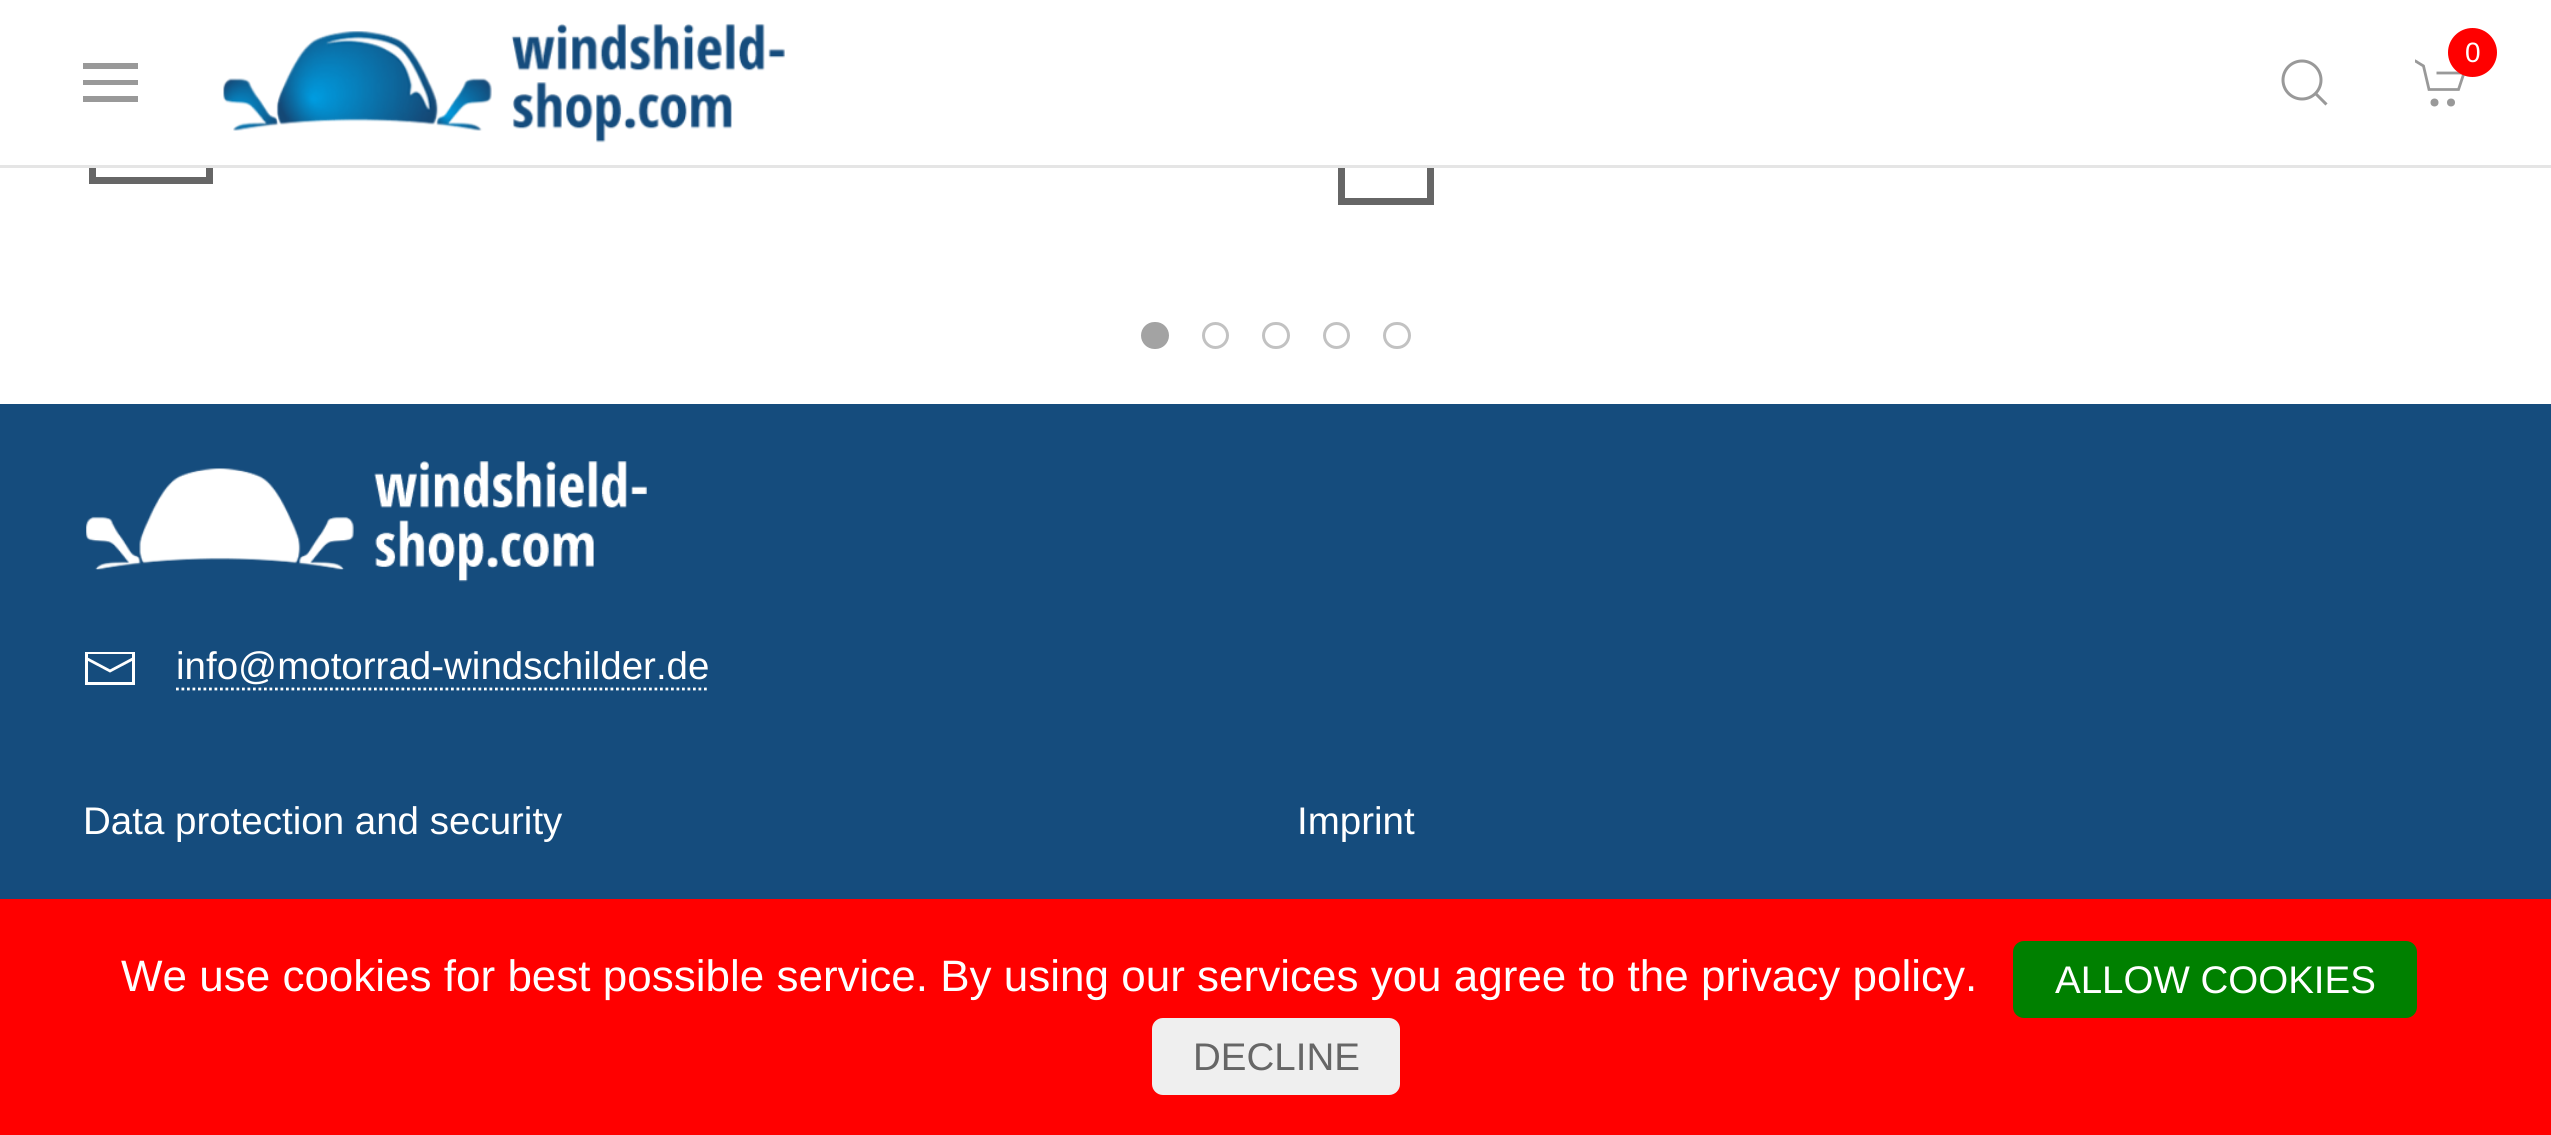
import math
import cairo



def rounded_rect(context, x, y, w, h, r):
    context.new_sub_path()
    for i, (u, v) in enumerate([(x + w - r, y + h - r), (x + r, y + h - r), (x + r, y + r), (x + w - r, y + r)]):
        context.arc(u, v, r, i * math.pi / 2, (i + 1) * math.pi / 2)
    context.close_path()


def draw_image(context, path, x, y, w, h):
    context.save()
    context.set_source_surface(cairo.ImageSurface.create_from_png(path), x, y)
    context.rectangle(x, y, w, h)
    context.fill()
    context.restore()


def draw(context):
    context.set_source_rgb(1, 1, 1)
    context.paint()
    context.set_source_rgb(102 / 255, 102 / 255, 102 / 255)
    context.new_path()
    context.move_to(89, 102)
    context.line_to(89, 184)
    context.line_to(213, 184)
    context.line_to(213, 102)
    context.close_path()
    context.move_to(206, 177)
    context.line_to(96, 177)
    context.line_to(96, 109)
    context.line_to(206, 109)
    context.close_path()
    context.fill()
    context.rectangle(1341.5, 132.5, 89, 69)
    context.set_line_width(7)
    context.stroke()
    context.set_source_rgb(1, 1, 1)
    context.rectangle(89, 102, 1345, 63)
    context.fill()
    context.set_source_rgb(229 / 255, 229 / 255, 229 / 255)
    context.rectangle(0, 165, 2551, 3)
    context.fill()
    context.set_source_rgb(153 / 255, 153 / 255, 153 / 255)
    context.rectangle(83, 80, 55, 5)
    context.fill()
    context.rectangle(83, 63, 55, 6)
    context.fill()
    context.rectangle(83, 96, 55, 6)
    context.fill()
    draw_image(context, "images/1.png", 223, 23, 562, 120)
    context.save()
    context.rectangle(2415, 55, 55, 55)
    context.clip()
    context.new_path()
    context.move_to(2414.5, 60.5)
    context.line_to(2423.5, 66)
    context.line_to(2429, 89.5)
    context.line_to(2458.5, 89.5)
    context.line_to(2464, 73)
    context.line_to(2436.5, 73)
    context.set_line_width(2.8)
    context.stroke()
    context.restore()
    context.set_source_rgb(1, 0, 0)
    context.arc(2472.5, 52.5, 24.5, 0, 2 * math.pi)
    context.fill()
    context.set_source_rgb(153 / 255, 153 / 255, 153 / 255)
    context.arc(2434.5, 102.5, 4, 0, 2 * math.pi)
    context.fill()
    context.arc(2451, 102.5, 4, 0, 2 * math.pi)
    context.fill()
    context.arc(2302, 80, 19, 0, 2 * math.pi)
    context.set_line_width(3)
    context.stroke()
    context.new_path()
    context.move_to(2315.5, 93.5)
    context.line_to(2326.5, 104.5)
    context.close_path()
    context.stroke()
    context.set_source_rgb(163 / 255, 163 / 255, 163 / 255)
    rounded_rect(context, 1141, 322, 28, 27, 13.5)
    context.fill()
    context.arc(1215.5, 335.5, 12, 0, 2 * math.pi)
    context.set_source_rgb(194 / 255, 194 / 255, 194 / 255)
    context.stroke()
    rounded_rect(context, 1263.5, 323.5, 25, 24, 12)
    context.stroke()
    context.arc(1336.5, 335.5, 12, 0, 2 * math.pi)
    context.stroke()
    rounded_rect(context, 1384.5, 323.5, 25, 24, 12)
    context.stroke()
    context.set_source_rgb(21 / 255, 76 / 255, 125 / 255)
    context.rectangle(0, 404, 2551, 495)
    context.fill()
    draw_image(context, "images/2.png", 86, 461, 561, 121)
    context.new_path()
    context.move_to(86.5, 658.5)
    context.line_to(110, 671)
    context.line_to(133.5, 658.5)
    context.set_source_rgb(1, 1, 1)
    context.set_line_width(2.8)
    context.stroke()
    context.new_path()
    context.move_to(85, 652)
    context.line_to(85, 685)
    context.line_to(135, 685)
    context.line_to(135, 652)
    context.close_path()
    context.move_to(132, 682)
    context.line_to(88, 682)
    context.line_to(88, 654)
    context.line_to(132, 654)
    context.close_path()
    context.fill()
    context.new_path()
    context.move_to(176, 689)
    context.line_to(709.5, 689)
    context.set_dash([2.75, 2.75])
    context.stroke()
    context.set_source_rgb(1, 0, 0)
    context.rectangle(0, 899, 2551, 236)
    context.fill()
    context.set_source_rgb(0, 128 / 255, 0)
    rounded_rect(context, 2013, 941, 404, 77, 11)
    context.fill()
    context.set_source_rgb(239 / 255, 239 / 255, 239 / 255)
    rounded_rect(context, 1152, 1018, 248, 77, 11)
    context.fill()
    context.select_font_face("Liberation Sans")
    context.set_font_size(28)
    context.set_source_rgb(1, 1, 1)
    context.move_to(2465, 62)
    context.show_text("0")
    context.set_font_size(38.5)
    context.move_to(176, 679)
    context.show_text("info@motorrad-windschilder.de")
    context.move_to(83, 834)
    context.show_text("Data protection and security")
    context.move_to(1297, 834)
    context.show_text("Imprint")
    context.set_font_size(44)
    context.move_to(121, 991)
    context.show_text("We use cookies for best possible service. By using our services you agree to the privacy policy.")
    context.set_font_size(38.5)
    context.move_to(2055, 993)
    context.show_text("ALLOW COOKIES")
    context.set_source_rgb(102 / 255, 102 / 255, 102 / 255)
    context.move_to(1193, 1070)
    context.show_text("DECLINE")


surface = cairo.ImageSurface(cairo.Format.RGB24, 2551, 1135)
context = cairo.Context(surface)
options = cairo.FontOptions()
options.set_hint_metrics(cairo.HintMetrics.OFF)
options.set_hint_style(cairo.HintStyle.NONE)
context.set_font_options(options)
context.set_miter_limit(4)
draw(context)
surface.write_to_png("out.png")
